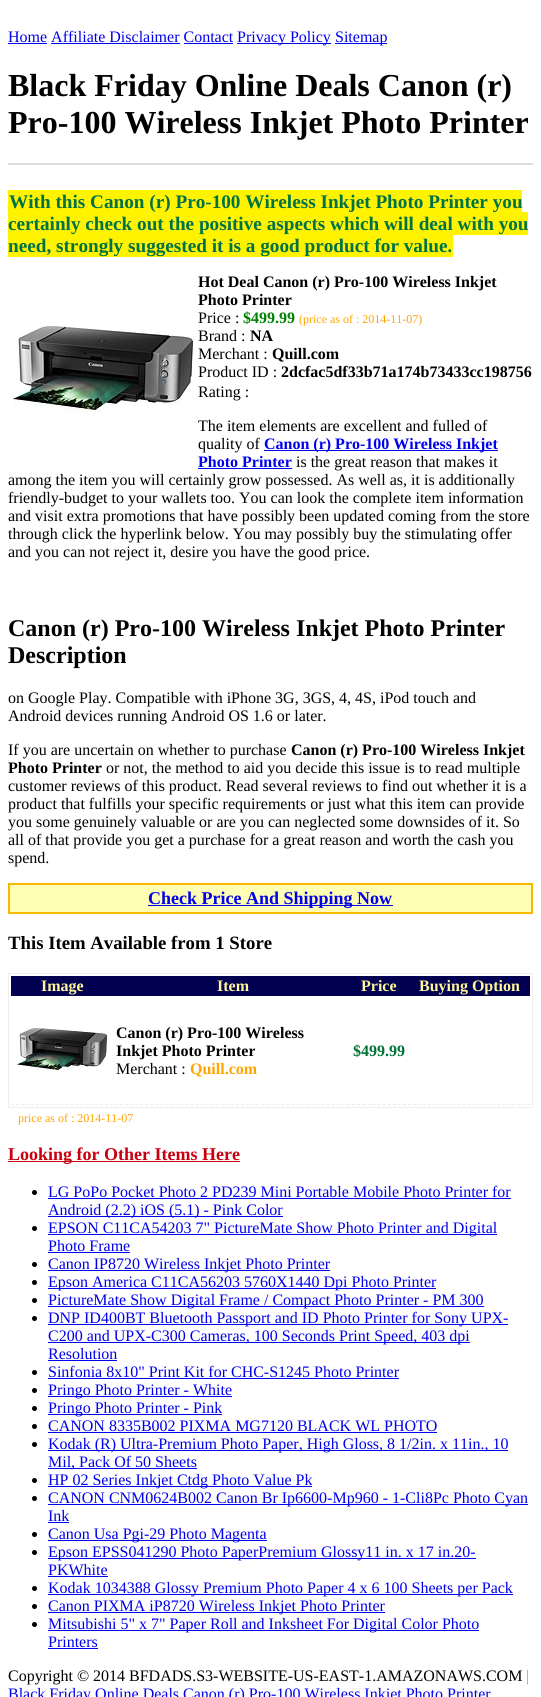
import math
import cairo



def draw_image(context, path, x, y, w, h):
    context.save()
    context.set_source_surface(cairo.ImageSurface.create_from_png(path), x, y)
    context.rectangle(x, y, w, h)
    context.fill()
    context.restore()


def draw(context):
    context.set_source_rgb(1, 1, 1)
    context.paint()
    context.set_source_rgb(0, 0, 238 / 255)
    context.rectangle(8, 43, 39, 1)
    context.fill()
    context.rectangle(237, 43, 94, 1)
    context.fill()
    context.rectangle(335, 43, 52, 1)
    context.fill()
    context.rectangle(51, 43, 129, 1)
    context.fill()
    context.rectangle(184, 43, 49, 1)
    context.fill()
    context.set_source_rgb(221 / 255, 221 / 255, 221 / 255)
    context.rectangle(8, 163, 525, 2)
    context.fill()
    context.set_source_rgb(1, 243 / 255, 0)
    context.rectangle(8, 190, 514, 22)
    context.fill()
    context.rectangle(8, 212, 520, 23)
    context.fill()
    context.rectangle(8, 235, 445, 22)
    context.fill()
    draw_image(context, "images/1.png", 13, 326, 180, 88)
    context.set_source_rgb(0, 0, 238 / 255)
    context.rectangle(264, 450, 234, 1)
    context.fill()
    context.rectangle(198, 468, 94, 1)
    context.fill()
    context.set_source_rgb(1, 1, 180 / 255)
    context.rectangle(9, 884, 523, 29)
    context.fill_preserve()
    context.set_source_rgb(246 / 255, 185 / 255, 0)
    context.stroke()
    context.set_source_rgb(0, 0, 238 / 255)
    context.rectangle(148, 905, 245, 1)
    context.fill()
    context.rectangle(8.5, 973.5, 524, 134)
    context.set_source_rgb(238 / 255, 238 / 255, 238 / 255)
    context.set_line_width(1)
    context.stroke()
    context.set_source_rgb(2 / 255, 0, 80 / 255)
    context.rectangle(11, 976, 519, 20)
    context.fill()
    context.new_path()
    context.move_to(11, 1104.5)
    context.line_to(113, 1104.5)
    context.set_source_rgb(238 / 255, 238 / 255, 238 / 255)
    context.set_dash([3, 1.95])
    context.stroke()
    draw_image(context, "images/2.png", 17, 1028, 90, 44)
    context.new_path()
    context.move_to(115, 1104.5)
    context.line_to(350, 1104.5)
    context.set_dash([3, 2.04])
    context.stroke()
    context.new_path()
    context.move_to(352, 1104.5)
    context.line_to(406, 1104.5)
    context.set_source_rgb(235 / 255, 235 / 255, 235 / 255)
    context.set_dash([3, 2.1])
    context.stroke()
    context.new_path()
    context.move_to(408, 1104.5)
    context.line_to(530, 1104.5)
    context.set_source_rgb(238 / 255, 238 / 255, 238 / 255)
    context.set_dash([3, 1.96])
    context.stroke()
    context.set_source_rgb(200 / 255, 0, 16 / 255)
    context.rectangle(8, 1161, 232, 1)
    context.fill()
    context.set_source_rgb(0, 0, 0)
    context.arc(34.5, 1192.5, 2.5, 0, 2 * math.pi)
    context.fill()
    context.set_source_rgb(0, 0, 238 / 255)
    context.rectangle(48, 1198, 463, 1)
    context.fill()
    context.rectangle(48, 1216, 235, 1)
    context.fill()
    context.set_source_rgb(0, 0, 0)
    context.arc(34.5, 1228.5, 2.5, 0, 2 * math.pi)
    context.fill()
    context.set_source_rgb(0, 0, 238 / 255)
    context.rectangle(48, 1234, 449, 1)
    context.fill()
    context.rectangle(48, 1252, 82, 1)
    context.fill()
    context.set_source_rgb(0, 0, 0)
    context.arc(34.5, 1264.5, 2.5, 0, 2 * math.pi)
    context.fill()
    context.set_source_rgb(0, 0, 238 / 255)
    context.rectangle(48, 1270, 282, 1)
    context.fill()
    context.set_source_rgb(0, 0, 0)
    context.arc(34.5, 1282.5, 2.5, 0, 2 * math.pi)
    context.fill()
    context.set_source_rgb(0, 0, 238 / 255)
    context.rectangle(48, 1288, 388, 1)
    context.fill()
    context.set_source_rgb(0, 0, 0)
    context.arc(34.5, 1300.5, 2.5, 0, 2 * math.pi)
    context.fill()
    context.set_source_rgb(0, 0, 238 / 255)
    context.rectangle(48, 1306, 436, 1)
    context.fill()
    context.set_source_rgb(0, 0, 0)
    context.arc(34.5, 1318.5, 2.5, 0, 2 * math.pi)
    context.fill()
    context.set_source_rgb(0, 0, 238 / 255)
    context.rectangle(48, 1324, 460, 1)
    context.fill()
    context.rectangle(48, 1342, 422, 1)
    context.fill()
    context.rectangle(48, 1360, 69, 1)
    context.fill()
    context.set_source_rgb(0, 0, 0)
    context.arc(34.5, 1372.5, 2.5, 0, 2 * math.pi)
    context.fill()
    context.set_source_rgb(0, 0, 238 / 255)
    context.rectangle(48, 1378, 351, 1)
    context.fill()
    context.set_source_rgb(0, 0, 0)
    context.arc(34.5, 1390.5, 2.5, 0, 2 * math.pi)
    context.fill()
    context.set_source_rgb(0, 0, 238 / 255)
    context.rectangle(48, 1396, 184, 1)
    context.fill()
    context.set_source_rgb(0, 0, 0)
    context.arc(34.5, 1408.5, 2.5, 0, 2 * math.pi)
    context.fill()
    context.set_source_rgb(0, 0, 238 / 255)
    context.rectangle(48, 1414, 174, 1)
    context.fill()
    context.set_source_rgb(0, 0, 0)
    context.arc(34.5, 1426.5, 2.5, 0, 2 * math.pi)
    context.fill()
    context.set_source_rgb(0, 0, 238 / 255)
    context.rectangle(48, 1432, 389, 1)
    context.fill()
    context.set_source_rgb(0, 0, 0)
    context.arc(34.5, 1444.5, 2.5, 0, 2 * math.pi)
    context.fill()
    context.set_source_rgb(0, 0, 238 / 255)
    context.rectangle(48, 1450, 460, 1)
    context.fill()
    context.rectangle(48, 1468, 149, 1)
    context.fill()
    context.set_source_rgb(0, 0, 0)
    context.arc(34.5, 1480.5, 2.5, 0, 2 * math.pi)
    context.fill()
    context.set_source_rgb(0, 0, 238 / 255)
    context.rectangle(48, 1486, 264, 1)
    context.fill()
    context.set_source_rgb(0, 0, 0)
    context.arc(34.5, 1498.5, 2.5, 0, 2 * math.pi)
    context.fill()
    context.set_source_rgb(0, 0, 238 / 255)
    context.rectangle(48, 1504, 480, 1)
    context.fill()
    context.rectangle(48, 1522, 21, 1)
    context.fill()
    context.set_source_rgb(0, 0, 0)
    context.arc(34.5, 1534.5, 2.5, 0, 2 * math.pi)
    context.fill()
    context.set_source_rgb(0, 0, 238 / 255)
    context.rectangle(48, 1540, 219, 1)
    context.fill()
    context.set_source_rgb(0, 0, 0)
    context.arc(34.5, 1552.5, 2.5, 0, 2 * math.pi)
    context.fill()
    context.set_source_rgb(0, 0, 238 / 255)
    context.rectangle(48, 1558, 428, 1)
    context.fill()
    context.rectangle(48, 1576, 60, 1)
    context.fill()
    context.set_source_rgb(0, 0, 0)
    context.arc(34.5, 1588.5, 2.5, 0, 2 * math.pi)
    context.fill()
    context.set_source_rgb(0, 0, 238 / 255)
    context.rectangle(48, 1594, 465, 1)
    context.fill()
    context.set_source_rgb(0, 0, 0)
    context.arc(34.5, 1606.5, 2.5, 0, 2 * math.pi)
    context.fill()
    context.set_source_rgb(0, 0, 238 / 255)
    context.rectangle(48, 1612, 337, 1)
    context.fill()
    context.set_source_rgb(0, 0, 0)
    context.arc(34.5, 1624.5, 2.5, 0, 2 * math.pi)
    context.fill()
    context.set_source_rgb(0, 0, 238 / 255)
    context.rectangle(48, 1630, 431, 1)
    context.fill()
    context.rectangle(48, 1648, 50, 1)
    context.fill()
    context.select_font_face("Liberation Serif")
    context.set_font_size(16)
    context.move_to(8, 42)
    context.show_text("Home Affiliate Disclaimer Contact")
    context.move_to(237, 42)
    context.show_text("Privacy Policy")
    context.move_to(335, 42)
    context.show_text("Sitemap")
    context.select_font_face("Liberation Serif", cairo.FontSlant.NORMAL, cairo.FontWeight.BOLD)
    context.set_font_size(32)
    context.set_source_rgb(0, 0, 0)
    context.move_to(8, 96)
    context.show_text("Black Friday Online Deals Canon (r)")
    context.move_to(8, 133)
    context.show_text("Pro-100 Wireless Inkjet Photo Printer")
    context.set_font_size(19.2)
    context.set_source_rgb(0, 114 / 255, 68 / 255)
    context.move_to(9, 208)
    context.show_text("With this Canon (r) Pro-100 Wireless Inkjet Photo Printer you")
    context.move_to(8, 230)
    context.show_text("certainly check out the positive aspects which will deal with you")
    context.move_to(8, 252)
    context.show_text("need, strongly suggested it is a good product for value.")
    context.set_font_size(16)
    context.set_source_rgb(0, 0, 0)
    context.move_to(198, 287)
    context.show_text("Hot Deal Canon (r) Pro-100 Wireless Inkjet")
    context.move_to(198, 305)
    context.show_text("Photo Printer")
    context.select_font_face("Liberation Serif")
    context.move_to(198, 323)
    context.show_text("Price :")
    context.select_font_face("Liberation Serif", cairo.FontSlant.NORMAL, cairo.FontWeight.BOLD)
    context.set_source_rgb(0, 128 / 255, 0)
    context.move_to(243, 323)
    context.show_text("$499.99")
    context.select_font_face("Liberation Serif")
    context.set_font_size(12)
    context.set_source_rgb(1, 165 / 255, 0)
    context.move_to(299, 323)
    context.show_text("(price as of : 2014-11-07)")
    context.set_font_size(16)
    context.set_source_rgb(0, 0, 0)
    context.move_to(198, 341)
    context.show_text("Brand :")
    context.select_font_face("Liberation Serif", cairo.FontSlant.NORMAL, cairo.FontWeight.BOLD)
    context.move_to(250, 341)
    context.show_text("NA")
    context.select_font_face("Liberation Serif")
    context.move_to(198, 359)
    context.show_text("Merchant :")
    context.select_font_face("Liberation Serif", cairo.FontSlant.NORMAL, cairo.FontWeight.BOLD)
    context.move_to(272, 359)
    context.show_text("Quill.com")
    context.select_font_face("Liberation Serif")
    context.move_to(198, 377)
    context.show_text("Product ID :")
    context.select_font_face("Liberation Serif", cairo.FontSlant.NORMAL, cairo.FontWeight.BOLD)
    context.move_to(281, 377)
    context.show_text("2dcfac5df33b71a174b73433cc198756")
    context.select_font_face("Liberation Serif")
    context.move_to(198, 397)
    context.show_text("Rating :")
    context.move_to(198, 431)
    context.show_text("The item elements are excellent and fulled of")
    context.move_to(198, 449)
    context.show_text("quality of")
    context.select_font_face("Liberation Serif", cairo.FontSlant.NORMAL, cairo.FontWeight.BOLD)
    context.set_source_rgb(0, 0, 238 / 255)
    context.move_to(264, 449)
    context.show_text("Canon (r) Pro-100 Wireless Inkjet")
    context.move_to(198, 467)
    context.show_text("Photo Printer")
    context.select_font_face("Liberation Serif")
    context.set_source_rgb(0, 0, 0)
    context.move_to(296, 467)
    context.show_text("is the great reason that makes it")
    context.move_to(8, 485)
    context.show_text("among the item you will certainly grow possessed. As well as, it is additionally")
    context.move_to(8, 503)
    context.show_text("friendly-budget to your wallets too. You can look the complete item information")
    context.move_to(8, 521)
    context.show_text("and visit extra promotions that have possibly been updated coming from the store")
    context.move_to(8, 539)
    context.show_text("through click the hyperlink below. You may possibly buy the stimulating offer")
    context.move_to(8, 557)
    context.show_text("and you can not reject it, desire you have the good price.")
    context.select_font_face("Liberation Serif", cairo.FontSlant.NORMAL, cairo.FontWeight.BOLD)
    context.set_font_size(24)
    context.move_to(8, 636)
    context.show_text("Canon (r) Pro-100 Wireless Inkjet Photo Printer")
    context.move_to(8, 663)
    context.show_text("Description")
    context.select_font_face("Liberation Serif")
    context.set_font_size(16)
    context.move_to(8, 703)
    context.show_text("on Google Play. Compatible with iPhone 3G, 3GS, 4, 4S, iPod touch and")
    context.move_to(8, 721)
    context.show_text("Android devices running Android OS 1.6 or later.")
    context.move_to(8, 755)
    context.show_text("If you are uncertain on whether to purchase")
    context.select_font_face("Liberation Serif", cairo.FontSlant.NORMAL, cairo.FontWeight.BOLD)
    context.move_to(291, 755)
    context.show_text("Canon (r) Pro-100 Wireless Inkjet")
    context.move_to(8, 773)
    context.show_text("Photo Printer")
    context.select_font_face("Liberation Serif")
    context.move_to(106, 773)
    context.show_text("or not, the method to aid you decide this issue is to read multiple")
    context.move_to(8, 791)
    context.show_text("customer reviews of this product. Read several reviews to find out whether it is a")
    context.move_to(8, 809)
    context.show_text("product that fulfills your specific requirements or just what this item can provide")
    context.move_to(8, 827)
    context.show_text("you some genuinely valuable or are you can neglected some downsides of it. So")
    context.move_to(8, 845)
    context.show_text("all of that provide you get a purchase for a great reason and worth the cash you")
    context.move_to(8, 863)
    context.show_text("spend.")
    context.select_font_face("Liberation Serif", cairo.FontSlant.NORMAL, cairo.FontWeight.BOLD)
    context.set_font_size(18)
    context.set_source_rgb(0, 0, 238 / 255)
    context.move_to(148, 904)
    context.show_text("Check Price And Shipping Now")
    context.set_font_size(18.75)
    context.set_source_rgb(0, 0, 0)
    context.move_to(8, 949)
    context.show_text("This Item Available from 1 Store")
    context.set_font_size(16)
    context.set_source_rgb(1, 247 / 255, 153 / 255)
    context.move_to(41, 991)
    context.show_text("Image")
    context.move_to(217, 991)
    context.show_text("Item")
    context.move_to(361, 991)
    context.show_text("Price")
    context.move_to(419, 991)
    context.show_text("Buying Option")
    context.set_source_rgb(0, 0, 0)
    context.move_to(116, 1038)
    context.show_text("Canon (r) Pro-100 Wireless")
    context.move_to(116, 1056)
    context.show_text("Inkjet Photo Printer")
    context.select_font_face("Liberation Serif")
    context.move_to(116, 1074)
    context.show_text("Merchant :")
    context.select_font_face("Liberation Serif", cairo.FontSlant.NORMAL, cairo.FontWeight.BOLD)
    context.set_source_rgb(1, 165 / 255, 0)
    context.move_to(190, 1074)
    context.show_text("Quill.com")
    context.set_source_rgb(0, 114 / 255, 54 / 255)
    context.move_to(353, 1056)
    context.show_text("$499.99")
    context.select_font_face("Liberation Serif")
    context.set_font_size(12)
    context.set_source_rgb(1, 165 / 255, 0)
    context.move_to(18, 1122)
    context.show_text("price as of : 2014-11-07")
    context.select_font_face("Liberation Serif", cairo.FontSlant.NORMAL, cairo.FontWeight.BOLD)
    context.set_font_size(18)
    context.set_source_rgb(200 / 255, 0, 16 / 255)
    context.move_to(8, 1160)
    context.show_text("Looking for Other Items Here")
    context.select_font_face("Liberation Serif")
    context.set_font_size(16)
    context.set_source_rgb(0, 0, 238 / 255)
    context.move_to(48, 1197)
    context.show_text("LG PoPo Pocket Photo 2 PD239 Mini Portable Mobile Photo Printer for")
    context.move_to(48, 1215)
    context.show_text("Android (2.2) iOS (5.1) - Pink Color")
    context.move_to(48, 1233)
    context.show_text("EPSON C11CA54203 7\" PictureMate Show Photo Printer and Digital")
    context.move_to(48, 1251)
    context.show_text("Photo Frame")
    context.move_to(48, 1269)
    context.show_text("Canon IP8720 Wireless Inkjet Photo Printer")
    context.move_to(48, 1287)
    context.show_text("Epson America C11CA56203 5760X1440 Dpi Photo Printer")
    context.move_to(48, 1305)
    context.show_text("PictureMate Show Digital Frame / Compact Photo Printer - PM 300")
    context.move_to(48, 1323)
    context.show_text("DNP ID400BT Bluetooth Passport and ID Photo Printer for Sony UPX-")
    context.move_to(48, 1341)
    context.show_text("C200 and UPX-C300 Cameras, 100 Seconds Print Speed, 403 dpi")
    context.move_to(48, 1359)
    context.show_text("Resolution")
    context.move_to(48, 1377)
    context.show_text("Sinfonia 8x10\" Print Kit for CHC-S1245 Photo Printer")
    context.move_to(48, 1395)
    context.show_text("Pringo Photo Printer - White")
    context.move_to(48, 1413)
    context.show_text("Pringo Photo Printer - Pink")
    context.move_to(48, 1431)
    context.show_text("CANON 8335B002 PIXMA MG7120 BLACK WL PHOTO")
    context.move_to(48, 1449)
    context.show_text("Kodak (R) Ultra-Premium Photo Paper, High Gloss, 8 1/2in. x 11in., 10")
    context.move_to(48, 1467)
    context.show_text("Mil, Pack Of 50 Sheets")
    context.move_to(48, 1485)
    context.show_text("HP 02 Series Inkjet Ctdg Photo Value Pk")
    context.move_to(48, 1503)
    context.show_text("CANON CNM0624B002 Canon Br Ip6600-Mp960 - 1-Cli8Pc Photo Cyan")
    context.move_to(48, 1521)
    context.show_text("Ink")
    context.move_to(48, 1539)
    context.show_text("Canon Usa Pgi-29 Photo Magenta")
    context.move_to(48, 1557)
    context.show_text("Epson EPSS041290 Photo PaperPremium Glossy11 in. x 17 in.20-")
    context.move_to(48, 1575)
    context.show_text("PKWhite")
    context.move_to(48, 1593)
    context.show_text("Kodak 1034388 Glossy Premium Photo Paper 4 x 6 100 Sheets per Pack")
    context.move_to(48, 1611)
    context.show_text("Canon PIXMA iP8720 Wireless Inkjet Photo Printer")
    context.move_to(48, 1629)
    context.show_text("Mitsubishi 5\" x 7\" Paper Roll and Inksheet For Digital Color Photo")
    context.move_to(48, 1647)
    context.show_text("Printers")
    context.set_source_rgb(0, 0, 0)
    context.move_to(8, 1681)
    context.show_text("Copyright © 2014 BFDADS.S3-WEBSITE-US-EAST-1.AMAZONAWS.COM |")
    context.set_source_rgb(0, 0, 238 / 255)
    context.move_to(8, 1699)
    context.show_text("Black Friday Online Deals Canon (r) Pro-100 Wireless Inkjet Photo Printer")


surface = cairo.ImageSurface(cairo.Format.RGB24, 541, 1697)
context = cairo.Context(surface)
options = cairo.FontOptions()
options.set_hint_metrics(cairo.HintMetrics.OFF)
options.set_hint_style(cairo.HintStyle.NONE)
context.set_font_options(options)
context.set_miter_limit(4)
draw(context)
surface.write_to_png("out.png")
